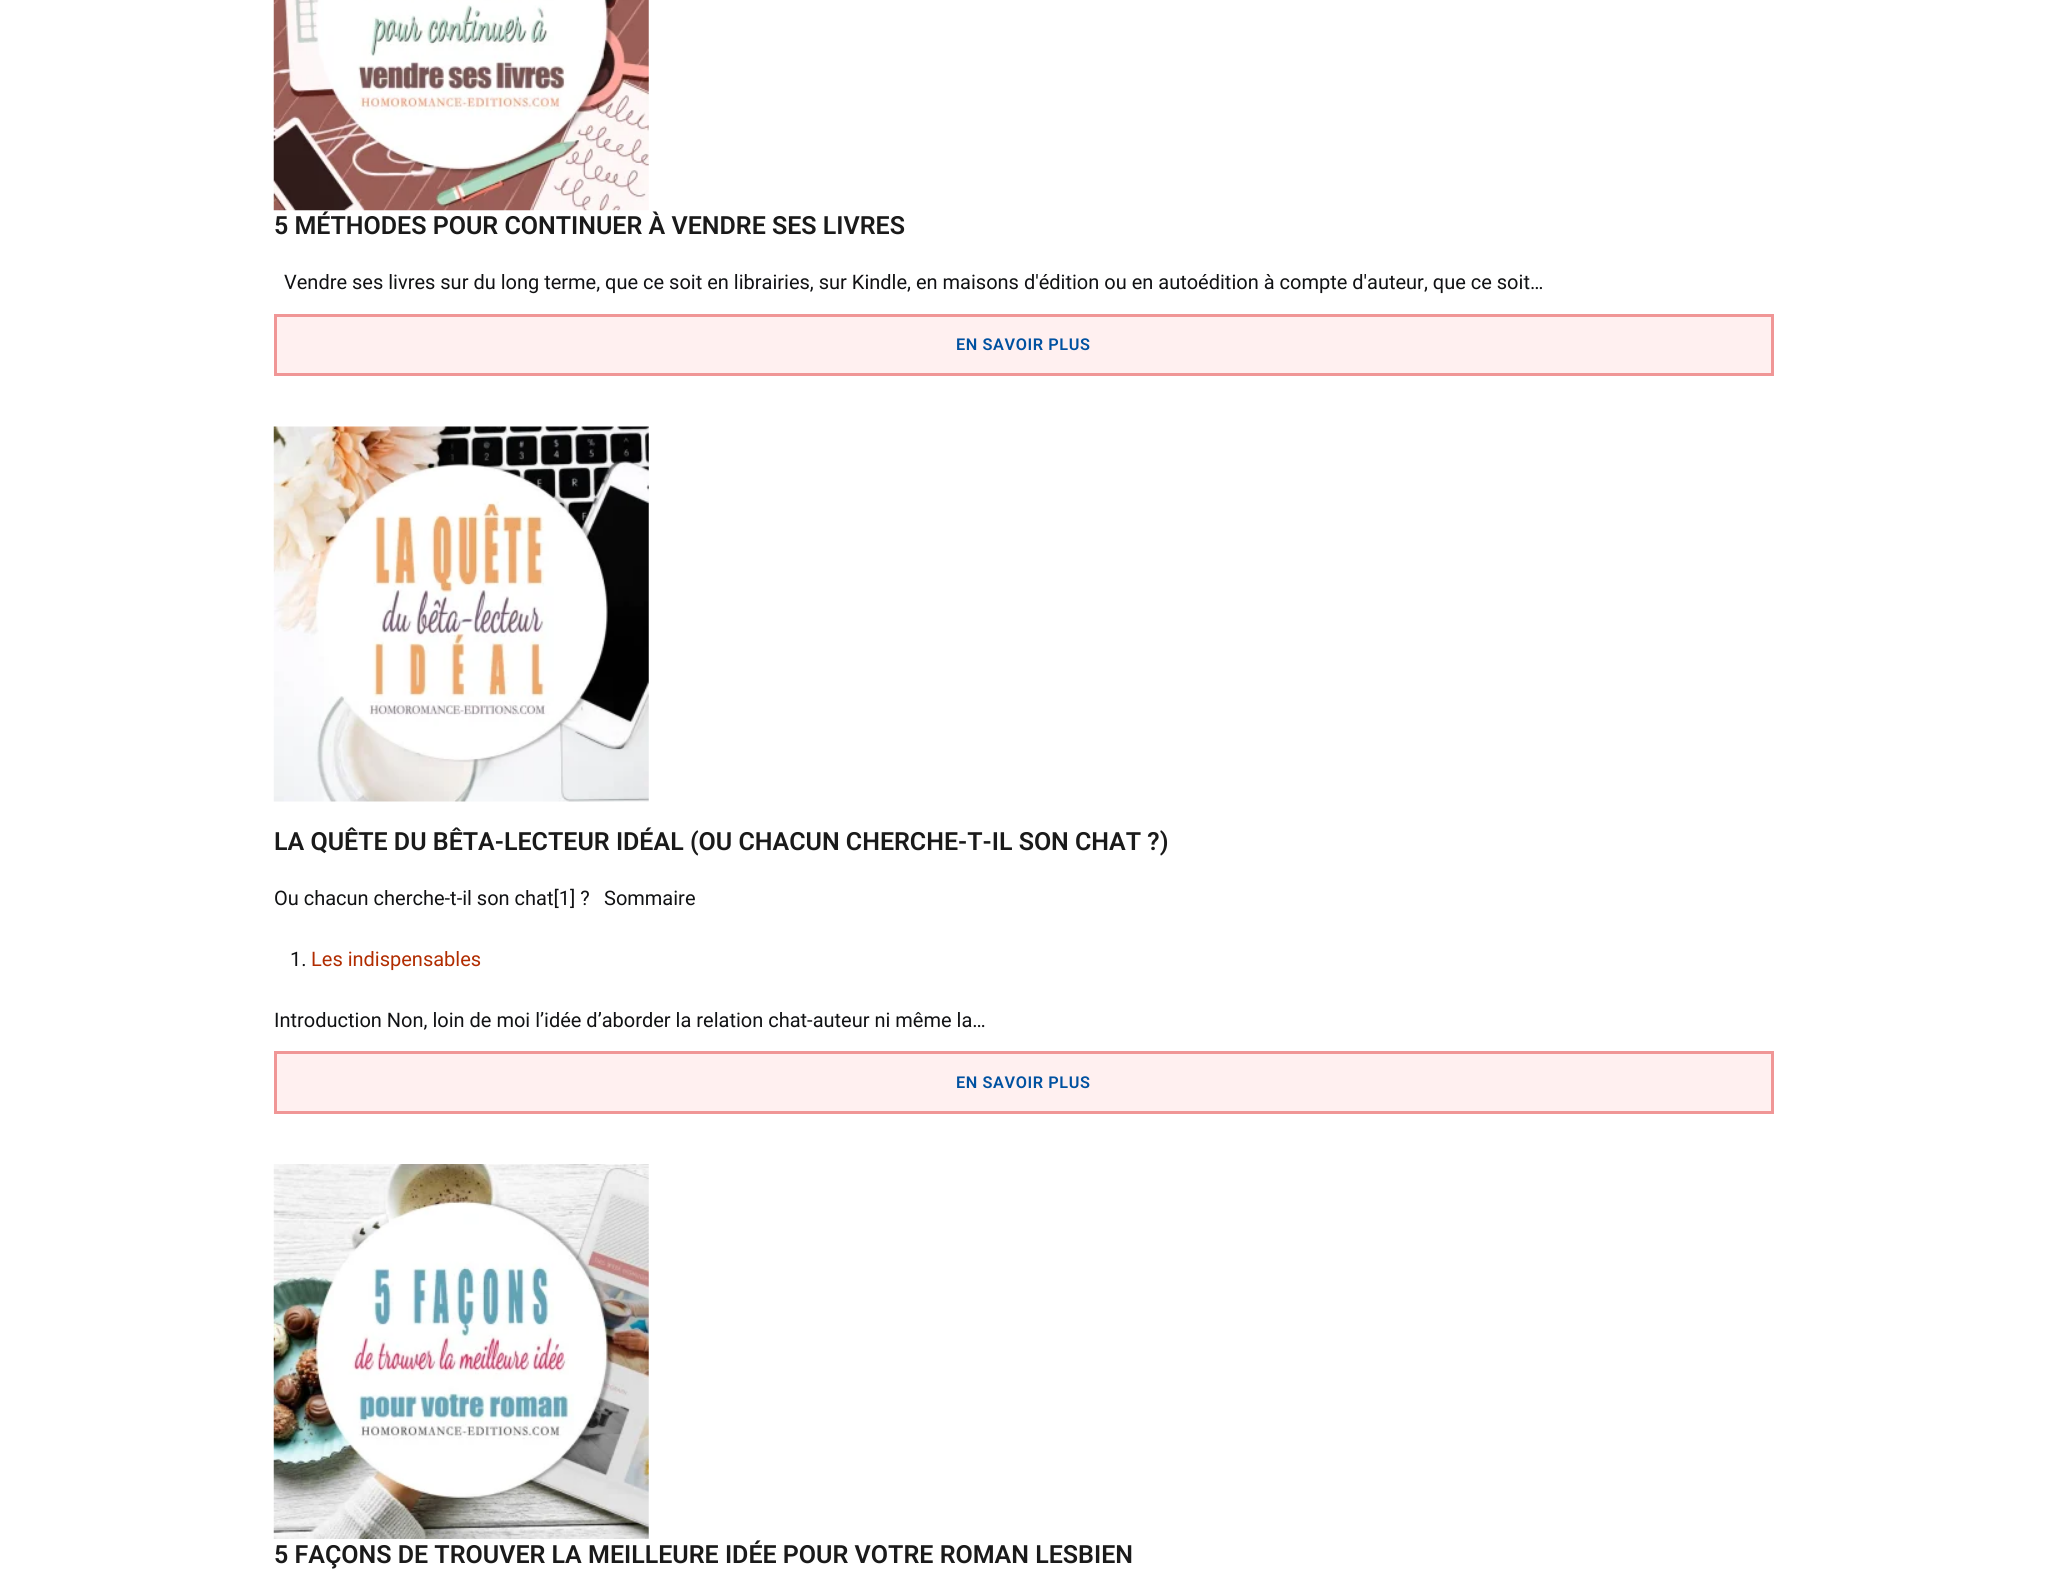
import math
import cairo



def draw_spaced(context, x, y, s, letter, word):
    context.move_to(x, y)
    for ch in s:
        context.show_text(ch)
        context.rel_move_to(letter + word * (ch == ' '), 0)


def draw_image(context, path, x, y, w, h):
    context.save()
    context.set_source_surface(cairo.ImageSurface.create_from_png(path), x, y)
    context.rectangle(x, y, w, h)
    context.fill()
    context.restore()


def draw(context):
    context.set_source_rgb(1, 1, 1)
    context.paint()
    draw_image(context, "images/1.png", 273, 0, 376, 211)
    context.set_source_rgb(1, 240 / 255, 240 / 255)
    context.rectangle(275.5, 315.5, 1497, 59)
    context.fill_preserve()
    context.set_source_rgb(240 / 255, 150 / 255, 150 / 255)
    context.set_line_width(3)
    context.stroke()
    draw_image(context, "images/2.png", 273, 426, 376, 376)
    context.set_source_rgb(1, 240 / 255, 240 / 255)
    context.rectangle(275.5, 1052.5, 1497, 60)
    context.fill_preserve()
    context.set_source_rgb(240 / 255, 150 / 255, 150 / 255)
    context.stroke()
    draw_image(context, "images/3.png", 273, 1164, 376, 375)
    context.select_font_face("Roboto SemiBold")
    context.set_font_size(25)
    context.set_source_rgb(26 / 255, 26 / 255, 26 / 255)
    context.move_to(274, 234)
    context.show_text("5 MÉTHODES POUR CONTINUER À VENDRE SES LIVRES")
    context.select_font_face("Roboto")
    context.set_font_size(20)
    context.set_source_rgb(17 / 255, 18 / 255, 20 / 255)
    context.move_to(284, 289)
    context.show_text("Vendre ses livres sur du long terme, que ce soit en librairies, sur Kindle, en maisons d'édition ou en autoédition à compte d'auteur, que ce soit…")
    context.select_font_face("Roboto SemiBold")
    context.set_font_size(16.25)
    context.set_source_rgb(0, 81 / 255, 160 / 255)
    draw_spaced(context, 956, 350, "EN SAVOIR PLUS", 0.6, 0)
    context.set_font_size(25)
    context.set_source_rgb(26 / 255, 26 / 255, 26 / 255)
    context.move_to(274, 850)
    context.show_text("LA QUÊTE DU BÊTA-LECTEUR IDÉAL (OU CHACUN CHERCHE-T-IL SON CHAT ?)")
    context.select_font_face("Roboto")
    context.set_font_size(20)
    context.set_source_rgb(17 / 255, 18 / 255, 20 / 255)
    context.move_to(274, 905)
    context.show_text("Ou chacun cherche-t-il son chat[1] ?")
    context.move_to(604, 905)
    context.show_text("Sommaire")
    context.move_to(290, 966)
    context.show_text("1.")
    context.set_source_rgb(177 / 255, 44 / 255, 0)
    context.move_to(311, 966)
    context.show_text("Les indispensables")
    context.set_source_rgb(17 / 255, 18 / 255, 20 / 255)
    context.move_to(274, 1027)
    context.show_text("Introduction Non, loin de moi l’idée d’aborder la relation chat-auteur ni même la…")
    context.select_font_face("Roboto SemiBold")
    context.set_font_size(16.25)
    context.set_source_rgb(0, 81 / 255, 160 / 255)
    draw_spaced(context, 956, 1088, "EN SAVOIR PLUS", 0.6, 0)
    context.set_font_size(25)
    context.set_source_rgb(26 / 255, 26 / 255, 26 / 255)
    context.move_to(274, 1563)
    context.show_text("5 FAÇONS DE TROUVER LA MEILLEURE IDÉE POUR VOTRE ROMAN LESBIEN")


surface = cairo.ImageSurface(cairo.Format.RGB24, 2047, 1586)
context = cairo.Context(surface)
options = cairo.FontOptions()
options.set_hint_metrics(cairo.HintMetrics.OFF)
options.set_hint_style(cairo.HintStyle.NONE)
context.set_font_options(options)
context.set_miter_limit(4)
draw(context)
surface.write_to_png("out.png")
